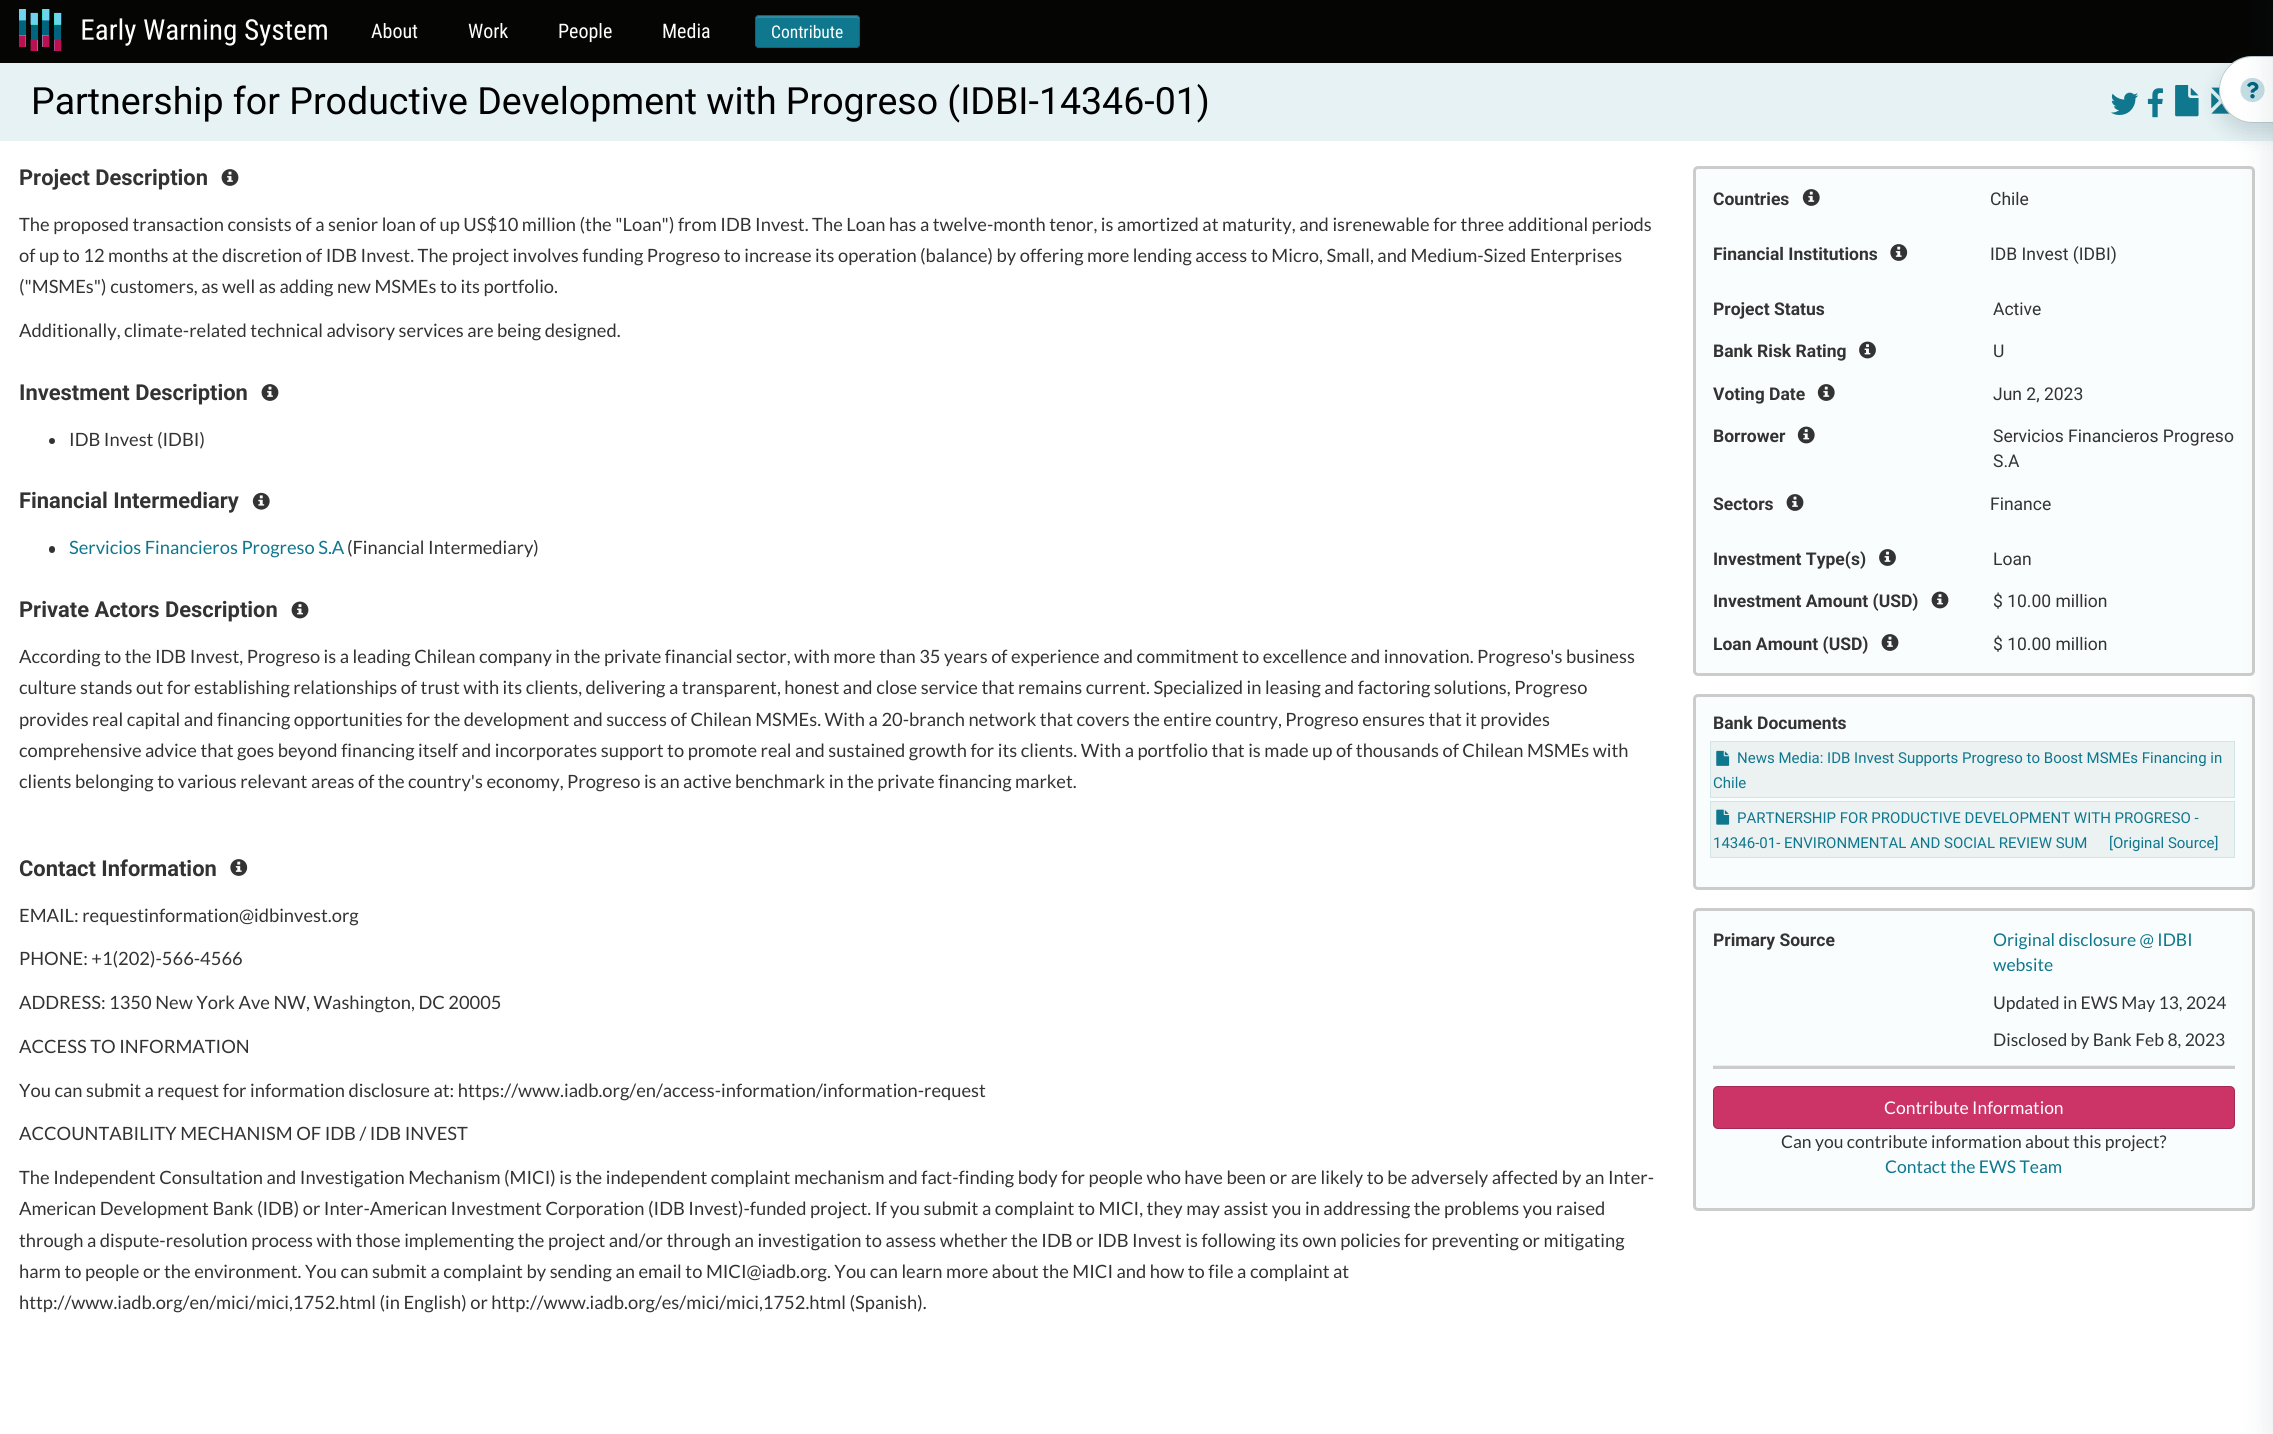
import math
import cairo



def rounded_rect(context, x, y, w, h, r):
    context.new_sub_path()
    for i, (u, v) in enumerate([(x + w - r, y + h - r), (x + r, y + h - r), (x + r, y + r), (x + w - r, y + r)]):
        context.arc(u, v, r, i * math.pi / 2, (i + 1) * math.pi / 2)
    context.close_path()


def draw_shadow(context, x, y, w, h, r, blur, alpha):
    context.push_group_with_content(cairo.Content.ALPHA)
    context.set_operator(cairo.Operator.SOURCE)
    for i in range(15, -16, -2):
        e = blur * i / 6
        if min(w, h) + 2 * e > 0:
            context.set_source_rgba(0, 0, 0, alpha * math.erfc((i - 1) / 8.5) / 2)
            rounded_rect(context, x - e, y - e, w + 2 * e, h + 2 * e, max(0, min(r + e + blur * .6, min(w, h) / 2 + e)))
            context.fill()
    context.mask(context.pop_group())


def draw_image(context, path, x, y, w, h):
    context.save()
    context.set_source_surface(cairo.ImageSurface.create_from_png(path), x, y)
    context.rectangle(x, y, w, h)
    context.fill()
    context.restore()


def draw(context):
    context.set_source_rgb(1, 1, 1)
    context.paint()
    context.set_source_rgb(5 / 255, 5 / 255, 4 / 255)
    context.rectangle(0, 0, 2273, 63)
    context.fill()
    draw_image(context, "images/1.png", 19, 9, 308, 42)
    context.set_source_rgb(15 / 255, 119 / 255, 142 / 255)
    rounded_rect(context, 755, 15, 105, 33, 4)
    context.fill()
    context.set_source_rgb(51 / 255, 139 / 255, 159 / 255)
    context.new_path()
    context.move_to(759, 18)
    context.line_to(856, 18)
    context.curve_to(858, 18, 859, 19, 859, 20)
    context.line_to(859, 18)
    context.curve_to(859, 17, 858, 16, 856, 16)
    context.line_to(758, 16)
    context.curve_to(757, 16, 756, 17, 756, 18)
    context.line_to(756, 20)
    context.curve_to(756, 19, 757, 18, 759, 18)
    context.close_path()
    context.fill()
    rounded_rect(context, 755.5, 15.5, 104, 32, 3.5)
    context.set_source_rgb(36 / 255, 85 / 255, 128 / 255)
    context.set_line_width(1)
    context.stroke()
    context.set_source_rgb(230 / 255, 242 / 255, 244 / 255)
    context.rectangle(0, 63, 2273, 78)
    context.fill()
    draw_image(context, "images/5.png", 2211, 87, 19, 27)
    draw_image(context, "images/4.png", 2175, 85, 24, 32)
    context.set_source_rgb(14 / 255, 56 / 255, 65 / 255)
    draw_shadow(context, 2219, 66, 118, 67, 33.5, 10, 0.15)
    context.set_source_rgb(1, 1, 1)
    context.new_path()
    context.move_to(2252.5, 56)
    context.line_to(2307, 56)
    context.line_to(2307, 123)
    context.line_to(2252.5, 123)
    context.curve_to(2234, 123, 2219, 108, 2219, 89.5)
    context.curve_to(2219, 71, 2234, 56, 2252.5, 56)
    context.close_path()
    context.fill()
    context.new_path()
    context.move_to(2252.5, 56.5)
    context.line_to(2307.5, 56.5)
    context.line_to(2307.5, 122.5)
    context.line_to(2252.5, 122.5)
    context.curve_to(2234.5, 122.5, 2219.5, 107.5, 2219.5, 89.5)
    context.curve_to(2219.5, 71.5, 2234.5, 56.5, 2252.5, 56.5)
    context.close_path()
    context.set_source_rgba(19 / 255, 73 / 255, 84 / 255, 0.3)
    context.stroke()
    draw_image(context, "images/6.png", 2240, 78, 25, 24)
    context.set_source_rgb(250 / 255, 253 / 255, 253 / 255)
    rounded_rect(context, 1694.5, 167.5, 559, 507, 3.5)
    context.fill_preserve()
    context.set_source_rgb(204 / 255, 204 / 255, 204 / 255)
    context.set_line_width(3)
    context.stroke()
    context.set_source_rgb(250 / 255, 253 / 255, 253 / 255)
    rounded_rect(context, 1694.5, 695.5, 559, 193, 3.5)
    context.fill_preserve()
    context.set_source_rgb(204 / 255, 204 / 255, 204 / 255)
    context.stroke()
    context.set_source_rgb(236 / 255, 241 / 255, 241 / 255)
    context.rectangle(1710.5, 741.5, 524, 56)
    context.fill_preserve()
    context.set_source_rgb(209 / 255, 229 / 255, 233 / 255)
    context.set_line_width(1)
    context.stroke()
    context.set_source_rgb(236 / 255, 241 / 255, 241 / 255)
    context.rectangle(1710.5, 801.5, 524, 56)
    context.fill_preserve()
    context.set_source_rgb(209 / 255, 229 / 255, 233 / 255)
    context.stroke()
    context.set_source_rgb(250 / 255, 253 / 255, 253 / 255)
    rounded_rect(context, 1694.5, 909.5, 559, 300, 3.5)
    context.fill_preserve()
    context.set_source_rgb(204 / 255, 204 / 255, 204 / 255)
    context.set_line_width(3)
    context.stroke()
    context.rectangle(1713, 1066, 522, 3)
    context.fill()
    context.set_source_rgb(238 / 255, 238 / 255, 238 / 255)
    context.rectangle(1713, 1065, 522, 1)
    context.fill()
    context.set_source_rgb(204 / 255, 51 / 255, 102 / 255)
    rounded_rect(context, 1713, 1086, 522, 43, 5)
    context.fill()
    rounded_rect(context, 1713.5, 1086.5, 521, 42, 4.5)
    context.set_source_rgba(0, 0, 0, 0.2)
    context.set_line_width(1)
    context.stroke()
    context.set_source_rgb(14 / 255, 56 / 255, 65 / 255)
    draw_shadow(context, 2269, 0, 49, 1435, 0, 15, 0.1)
    draw_image(context, "images/2.png", 2111, 92, 28, 23)
    draw_image(context, "images/3.png", 2147, 88, 16, 30)
    draw_image(context, "images/7.png", 221, 169, 18, 17)
    draw_image(context, "images/8.png", 1802, 189, 18, 17)
    draw_image(context, "images/9.png", 1890, 244, 18, 17)
    draw_image(context, "images/10.png", 1859, 341, 17, 18)
    draw_image(context, "images/8.png", 1817, 384, 18, 17)
    draw_image(context, "images/11.png", 1797, 426, 18, 18)
    draw_image(context, "images/12.png", 1786, 494, 18, 17)
    draw_image(context, "images/13.png", 1879, 549, 17, 17)
    draw_image(context, "images/14.png", 1931, 591, 18, 18)
    draw_image(context, "images/12.png", 1881, 634, 18, 17)
    draw_image(context, "images/15.png", 1716, 750, 14, 16)
    draw_image(context, "images/16.png", 1716, 809, 14, 16)
    draw_image(context, "images/7.png", 261, 384, 18, 17)
    context.set_source_rgb(51 / 255, 51 / 255, 51 / 255)
    context.arc(52, 441, 3, 0, 2 * math.pi)
    context.fill()
    draw_image(context, "images/17.png", 252, 492, 18, 18)
    rounded_rect(context, 49, 546, 6, 7, 3)
    context.fill()
    draw_image(context, "images/18.png", 291, 601, 18, 18)
    draw_image(context, "images/19.png", 230, 859, 18, 17)
    context.select_font_face("Roboto Condensed")
    context.set_font_size(20)
    context.set_source_rgb(1, 1, 1)
    context.move_to(371, 38)
    context.show_text("About")
    context.move_to(468, 38)
    context.show_text("Work")
    context.move_to(558, 38)
    context.show_text("People")
    context.move_to(662, 38)
    context.show_text("Media")
    context.set_font_size(17.5)
    context.move_to(771, 38)
    context.show_text("Contribute")
    context.select_font_face("Roboto")
    context.set_font_size(37.5)
    context.set_source_rgb(0, 0, 0)
    context.move_to(31, 114)
    context.show_text("Partnership for Productive Development with Progreso (IDBI-14346-01)")
    context.select_font_face("Roboto", cairo.FontSlant.NORMAL, cairo.FontWeight.BOLD)
    context.set_font_size(21.9)
    context.set_source_rgb(51 / 255, 51 / 255, 51 / 255)
    context.move_to(19, 185)
    context.show_text("Project Description")
    context.select_font_face("Lato")
    context.set_font_size(18.33)
    context.move_to(19, 231)
    context.show_text("The proposed transaction consists of a senior loan of up US$10 million (the \"Loan\") from IDB Invest. The Loan has a twelve-month tenor, is amortized at maturity, and isrenewable for three additional periods")
    context.move_to(19, 262)
    context.show_text("of up to 12 months at the discretion of IDB Invest. The project involves funding Progreso to increase its operation (balance) by offering more lending access to Micro, Small, and Medium-Sized Enterprises")
    context.move_to(19, 293)
    context.show_text("(\"MSMEs\") customers, as well as adding new MSMEs to its portfolio.")
    context.move_to(19, 337)
    context.show_text("Additionally, climate-related technical advisory services are being designed.")
    context.select_font_face("Roboto", cairo.FontSlant.NORMAL, cairo.FontWeight.BOLD)
    context.set_font_size(17.5)
    context.move_to(1713, 205)
    context.show_text("Countries")
    context.select_font_face("Roboto")
    context.move_to(1990, 205)
    context.show_text("Chile")
    context.select_font_face("Roboto", cairo.FontSlant.NORMAL, cairo.FontWeight.BOLD)
    context.move_to(1713, 260)
    context.show_text("Financial Institutions")
    context.select_font_face("Roboto")
    context.move_to(1990, 260)
    context.show_text("IDB Invest (IDBI)")
    context.select_font_face("Roboto", cairo.FontSlant.NORMAL, cairo.FontWeight.BOLD)
    context.move_to(1713, 315)
    context.show_text("Project Status")
    context.select_font_face("Roboto")
    context.move_to(1993, 315)
    context.show_text("Active")
    context.select_font_face("Roboto", cairo.FontSlant.NORMAL, cairo.FontWeight.BOLD)
    context.move_to(1713, 357)
    context.show_text("Bank Risk Rating")
    context.select_font_face("Roboto")
    context.move_to(1993, 357)
    context.show_text("U")
    context.select_font_face("Roboto", cairo.FontSlant.NORMAL, cairo.FontWeight.BOLD)
    context.move_to(1713, 400)
    context.show_text("Voting Date")
    context.select_font_face("Roboto")
    context.move_to(1993, 400)
    context.show_text("Jun 2, 2023")
    context.select_font_face("Roboto", cairo.FontSlant.NORMAL, cairo.FontWeight.BOLD)
    context.move_to(1713, 442)
    context.show_text("Borrower")
    context.select_font_face("Roboto")
    context.move_to(1993, 442)
    context.show_text("Servicios Financieros Progreso")
    context.move_to(1993, 467)
    context.show_text("S.A")
    context.select_font_face("Roboto", cairo.FontSlant.NORMAL, cairo.FontWeight.BOLD)
    context.move_to(1713, 510)
    context.show_text("Sectors")
    context.select_font_face("Roboto")
    context.move_to(1990, 510)
    context.show_text("Finance")
    context.select_font_face("Roboto", cairo.FontSlant.NORMAL, cairo.FontWeight.BOLD)
    context.move_to(1713, 565)
    context.show_text("Investment Type(s)")
    context.select_font_face("Roboto")
    context.move_to(1993, 565)
    context.show_text("Loan")
    context.select_font_face("Roboto", cairo.FontSlant.NORMAL, cairo.FontWeight.BOLD)
    context.move_to(1713, 607)
    context.show_text("Investment Amount (USD)")
    context.select_font_face("Roboto")
    context.move_to(1993, 607)
    context.show_text("$ 10.00 million")
    context.select_font_face("Roboto", cairo.FontSlant.NORMAL, cairo.FontWeight.BOLD)
    context.move_to(1713, 650)
    context.show_text("Loan Amount (USD)")
    context.select_font_face("Roboto")
    context.move_to(1993, 650)
    context.show_text("$ 10.00 million")
    context.select_font_face("Roboto", cairo.FontSlant.NORMAL, cairo.FontWeight.BOLD)
    context.move_to(1713, 729)
    context.show_text("Bank Documents")
    context.select_font_face("Roboto")
    context.set_font_size(15)
    context.set_source_rgb(15 / 255, 119 / 255, 142 / 255)
    context.move_to(1737, 763)
    context.show_text("News Media: IDB Invest Supports Progreso to Boost MSMEs Financing in")
    context.move_to(1713, 788)
    context.show_text("Chile")
    context.move_to(1737, 823)
    context.show_text("PARTNERSHIP FOR PRODUCTIVE DEVELOPMENT WITH PROGRESO -")
    context.move_to(1713, 848)
    context.show_text("14346-01- ENVIRONMENTAL AND SOCIAL REVIEW SUM")
    context.move_to(2109, 848)
    context.show_text("[Original Source]")
    context.select_font_face("Roboto", cairo.FontSlant.NORMAL, cairo.FontWeight.BOLD)
    context.set_font_size(17.5)
    context.set_source_rgb(51 / 255, 51 / 255, 51 / 255)
    context.move_to(1713, 946)
    context.show_text("Primary Source")
    context.select_font_face("Lato")
    context.set_source_rgb(15 / 255, 119 / 255, 142 / 255)
    context.move_to(1993, 946)
    context.show_text("Original disclosure @ IDBI")
    context.move_to(1993, 971)
    context.show_text("website")
    context.set_source_rgb(51 / 255, 51 / 255, 51 / 255)
    context.move_to(1993, 1009)
    context.show_text("Updated in EWS May 13, 2024")
    context.move_to(1993, 1046)
    context.show_text("Disclosed by Bank Feb 8, 2023")
    context.set_source_rgb(1, 1, 1)
    context.move_to(1884, 1114)
    context.show_text("Contribute Information")
    context.set_source_rgb(51 / 255, 51 / 255, 51 / 255)
    context.move_to(1781, 1148)
    context.show_text("Can you contribute information about this project?")
    context.set_source_rgb(15 / 255, 119 / 255, 142 / 255)
    context.move_to(1885, 1173)
    context.show_text("Contact the EWS Team")
    context.select_font_face("Roboto", cairo.FontSlant.NORMAL, cairo.FontWeight.BOLD)
    context.set_font_size(21.9)
    context.set_source_rgb(51 / 255, 51 / 255, 51 / 255)
    context.move_to(19, 400)
    context.show_text("Investment Description")
    context.select_font_face("Lato")
    context.set_font_size(18.33)
    context.move_to(69, 446)
    context.show_text("IDB Invest (IDBI)")
    context.select_font_face("Roboto", cairo.FontSlant.NORMAL, cairo.FontWeight.BOLD)
    context.set_font_size(21.9)
    context.move_to(19, 508)
    context.show_text("Financial Intermediary")
    context.select_font_face("Lato")
    context.set_font_size(18.33)
    context.set_source_rgb(15 / 255, 119 / 255, 142 / 255)
    context.move_to(69, 554)
    context.show_text("Servicios Financieros Progreso S.A")
    context.set_source_rgb(51 / 255, 51 / 255, 51 / 255)
    context.move_to(347, 554)
    context.show_text("(Financial Intermediary)")
    context.select_font_face("Roboto", cairo.FontSlant.NORMAL, cairo.FontWeight.BOLD)
    context.set_font_size(21.9)
    context.move_to(19, 617)
    context.show_text("Private Actors Description")
    context.select_font_face("Lato")
    context.set_font_size(18.33)
    context.move_to(19, 663)
    context.show_text("According to the IDB Invest, Progreso is a leading Chilean company in the private financial sector, with more than 35 years of experience and commitment to excellence and innovation. Progreso's business")
    context.move_to(19, 694)
    context.show_text("culture stands out for establishing relationships of trust with its clients, delivering a transparent, honest and close service that remains current. Specialized in leasing and factoring solutions, Progreso")
    context.move_to(19, 726)
    context.show_text("provides real capital and financing opportunities for the development and success of Chilean MSMEs. With a 20-branch network that covers the entire country, Progreso ensures that it provides")
    context.move_to(19, 757)
    context.show_text("comprehensive advice that goes beyond financing itself and incorporates support to promote real and sustained growth for its clients. With a portfolio that is made up of thousands of Chilean MSMEs with")
    context.move_to(19, 788)
    context.show_text("clients belonging to various relevant areas of the country's economy, Progreso is an active benchmark in the private financing market.")
    context.select_font_face("Roboto", cairo.FontSlant.NORMAL, cairo.FontWeight.BOLD)
    context.set_font_size(21.9)
    context.move_to(19, 876)
    context.show_text("Contact Information")
    context.select_font_face("Lato")
    context.set_font_size(18.33)
    context.move_to(19, 922)
    context.show_text("EMAIL: requestinformation@idbinvest.org")
    context.move_to(19, 965)
    context.show_text("PHONE: +1(202)-566-4566")
    context.move_to(19, 1009)
    context.show_text("ADDRESS: 1350 New York Ave NW, Washington, DC 20005")
    context.move_to(19, 1053)
    context.show_text("ACCESS TO INFORMATION")
    context.move_to(19, 1097)
    context.show_text("You can submit a request for information disclosure at: https://www.iadb.org/en/access-information/information-request")
    context.move_to(19, 1140)
    context.show_text("ACCOUNTABILITY MECHANISM OF IDB / IDB INVEST")
    context.move_to(19, 1184)
    context.show_text("The Independent Consultation and Investigation Mechanism (MICI) is the independent complaint mechanism and fact-finding body for people who have been or are likely to be adversely affected by an Inter-")
    context.move_to(19, 1215)
    context.show_text("American Development Bank (IDB) or Inter-American Investment Corporation (IDB Invest)-funded project. If you submit a complaint to MICI, they may assist you in addressing the problems you raised")
    context.move_to(19, 1247)
    context.show_text("through a dispute-resolution process with those implementing the project and/or through an investigation to assess whether the IDB or IDB Invest is following its own policies for preventing or mitigating")
    context.move_to(19, 1278)
    context.show_text("harm to people or the environment. You can submit a complaint by sending an email to MICI@iadb.org. You can learn more about the MICI and how to file a complaint at")
    context.move_to(19, 1309)
    context.show_text("http://www.iadb.org/en/mici/mici,1752.html (in English) or http://www.iadb.org/es/mici/mici,1752.html (Spanish).")


surface = cairo.ImageSurface(cairo.Format.RGB24, 2273, 1434)
context = cairo.Context(surface)
options = cairo.FontOptions()
options.set_hint_metrics(cairo.HintMetrics.OFF)
options.set_hint_style(cairo.HintStyle.NONE)
context.set_font_options(options)
context.set_miter_limit(4)
draw(context)
surface.write_to_png("out.png")
